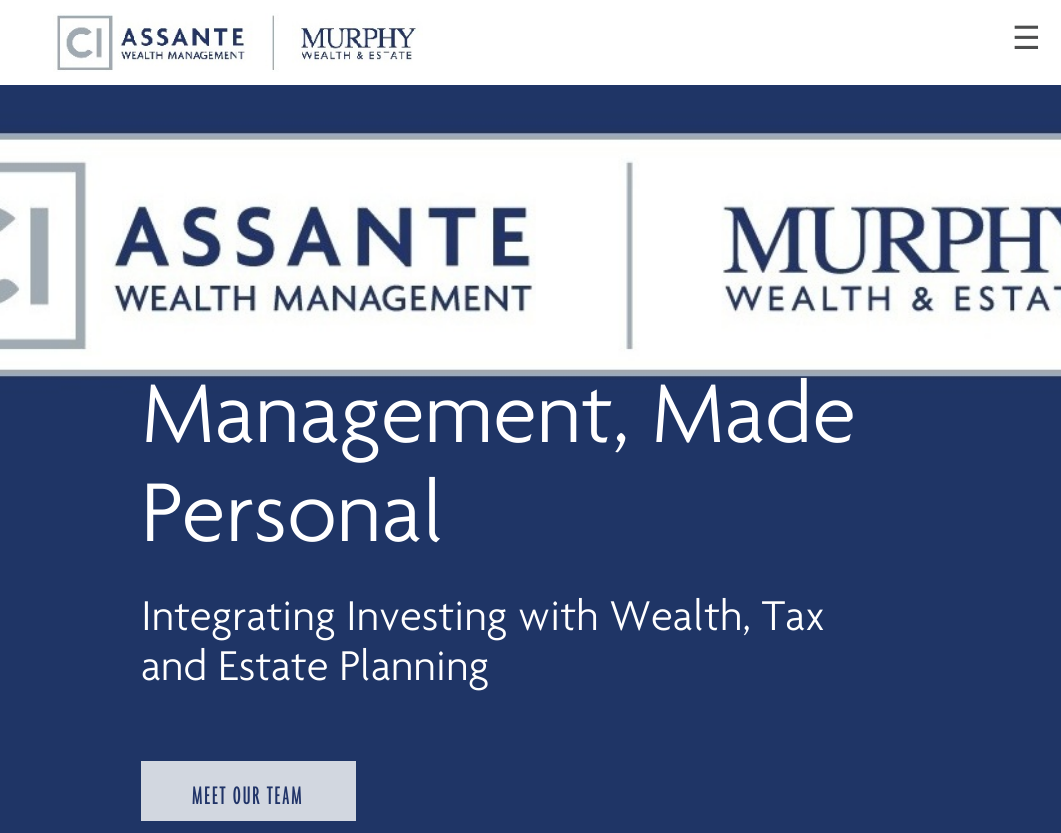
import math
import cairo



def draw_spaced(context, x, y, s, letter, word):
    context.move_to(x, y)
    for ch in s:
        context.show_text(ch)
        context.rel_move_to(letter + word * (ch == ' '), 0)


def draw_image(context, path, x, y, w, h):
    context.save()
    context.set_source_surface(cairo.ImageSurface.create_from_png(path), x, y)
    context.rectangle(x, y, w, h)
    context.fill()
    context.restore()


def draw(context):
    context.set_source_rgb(1, 1, 1)
    context.paint()
    draw_image(context, "images/1.png", 53, 13, 370, 59)
    draw_image(context, "images/2.png", 0, 85, 1061, 748)
    context.set_source_rgb(210 / 255, 215 / 255, 224 / 255)
    context.rectangle(141, 761, 215, 60)
    context.fill()
    context.select_font_face("DejaVu Sans")
    context.set_font_size(32)
    context.set_source_rgb(77 / 255, 78 / 255, 78 / 255)
    context.move_to(1012, 49)
    context.show_text("☰")
    context.select_font_face("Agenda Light")
    context.set_font_size(90)
    context.set_source_rgb(1, 1, 1)
    context.move_to(141, 442)
    context.show_text("Management, Made")
    context.move_to(141, 541)
    context.show_text("Personal")
    context.set_font_size(45)
    context.move_to(141, 630)
    context.show_text("Integrating Investing with Wealth, Tax")
    context.move_to(141, 680)
    context.show_text("and Estate Planning")
    context.select_font_face("Agenda Medium")
    context.set_font_size(27.5)
    context.set_source_rgb(33 / 255, 52 / 255, 104 / 255)
    draw_spaced(context, 192, 804, "MEET OUR TEAM", 1.9, 0)


surface = cairo.ImageSurface(cairo.Format.RGB24, 1061, 833)
context = cairo.Context(surface)
options = cairo.FontOptions()
options.set_hint_metrics(cairo.HintMetrics.OFF)
options.set_hint_style(cairo.HintStyle.NONE)
context.set_font_options(options)
context.set_miter_limit(4)
draw(context)
surface.write_to_png("out.png")
